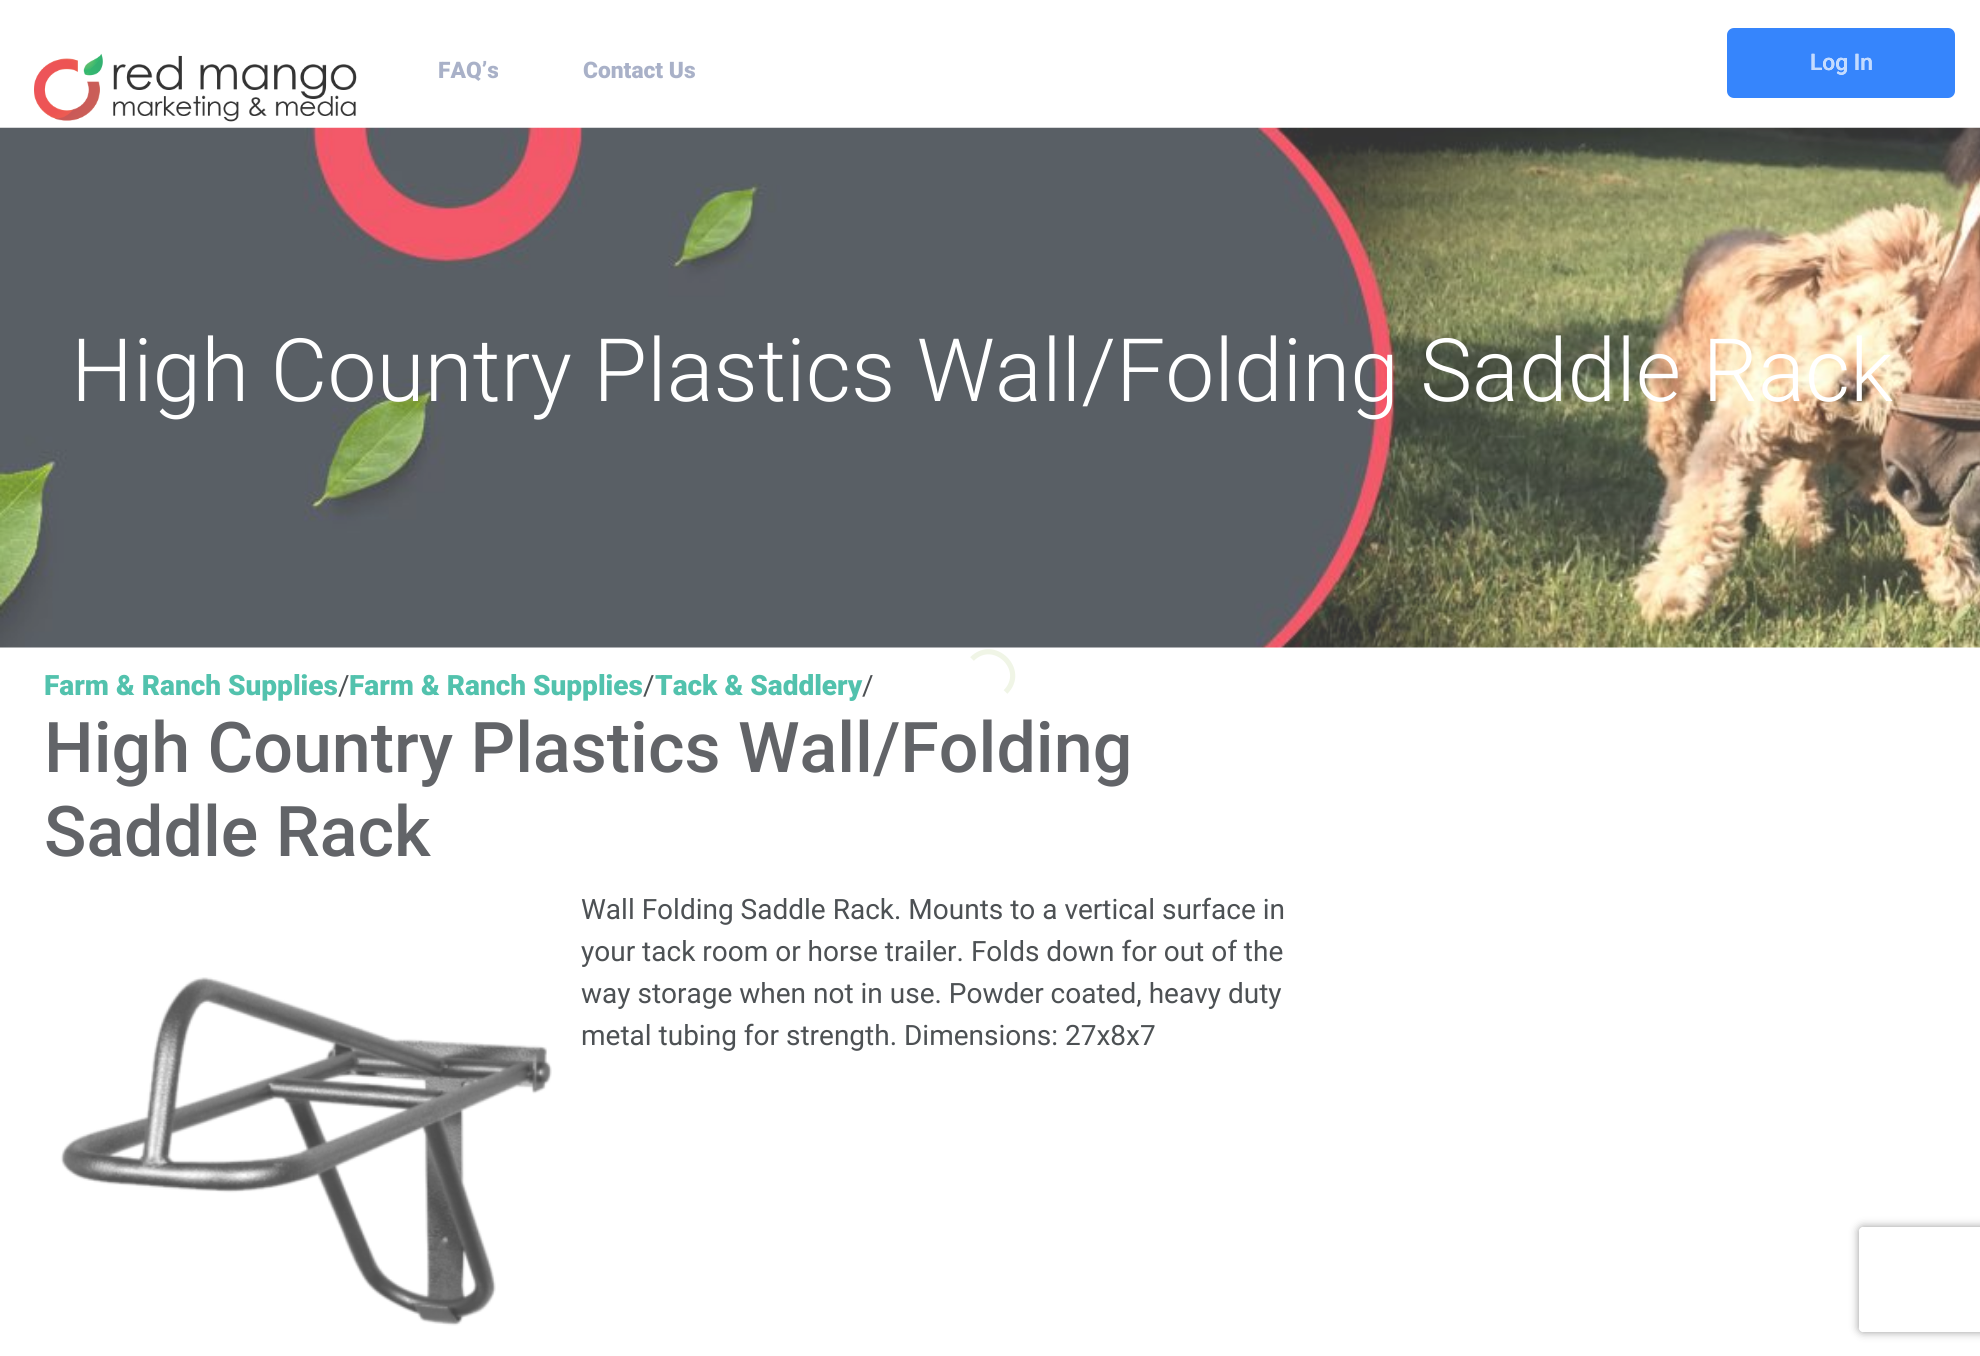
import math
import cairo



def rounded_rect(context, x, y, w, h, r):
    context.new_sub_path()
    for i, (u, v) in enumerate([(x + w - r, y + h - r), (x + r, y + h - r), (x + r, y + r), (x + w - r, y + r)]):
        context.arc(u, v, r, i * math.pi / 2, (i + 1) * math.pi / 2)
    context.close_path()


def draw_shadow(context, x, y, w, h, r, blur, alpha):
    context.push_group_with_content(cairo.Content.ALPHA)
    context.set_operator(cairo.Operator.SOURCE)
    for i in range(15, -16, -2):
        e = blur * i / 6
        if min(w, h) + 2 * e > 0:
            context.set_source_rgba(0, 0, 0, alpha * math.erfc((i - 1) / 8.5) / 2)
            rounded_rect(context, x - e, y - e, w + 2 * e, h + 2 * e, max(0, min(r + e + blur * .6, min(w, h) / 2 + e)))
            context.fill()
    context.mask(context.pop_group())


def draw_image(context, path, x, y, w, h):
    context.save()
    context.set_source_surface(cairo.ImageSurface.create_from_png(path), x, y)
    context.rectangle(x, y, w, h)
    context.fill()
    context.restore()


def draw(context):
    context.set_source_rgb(1, 1, 1)
    context.paint()
    draw_image(context, "images/1.png", 34, 53, 323, 69)
    context.set_source_rgb(54 / 255, 133 / 255, 252 / 255)
    rounded_rect(context, 1727, 28, 228, 70, 7)
    context.fill()
    draw_image(context, "images/2.png", 0, 127, 1980, 521)
    draw_image(context, "images/3.png", 60, 977, 492, 349)
    context.new_path()
    context.move_to(972, 659)
    context.curve_to(994, 637, 1027.5, 670, 1005.5, 692)
    context.set_source_rgb(240 / 255, 245 / 255, 230 / 255)
    context.set_line_width(5.2)
    context.stroke()
    context.save()
    context.set_fill_rule(cairo.FillRule.EVEN_ODD)
    context.new_path()
    context.move_to(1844, 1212)
    context.line_to(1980, 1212)
    context.line_to(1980, 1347)
    context.line_to(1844, 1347)
    context.close_path()
    context.move_to(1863, 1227)
    context.line_to(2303, 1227)
    context.curve_to(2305, 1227, 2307, 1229, 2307, 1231)
    context.line_to(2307, 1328)
    context.curve_to(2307, 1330, 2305, 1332, 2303, 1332)
    context.line_to(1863, 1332)
    context.curve_to(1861, 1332, 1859, 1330, 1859, 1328)
    context.line_to(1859, 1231)
    context.curve_to(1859, 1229, 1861, 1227, 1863, 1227)
    context.close_path()
    context.clip()
    context.set_source_rgb(153 / 255, 153 / 255, 153 / 255)
    draw_shadow(context, 1859, 1227, 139, 105, 4, 4.5, 1)
    context.restore()
    context.select_font_face("Roboto Black")
    context.set_font_size(22.75)
    context.set_source_rgb(169 / 255, 177 / 255, 200 / 255)
    context.move_to(438, 78)
    context.show_text("FAQ’s")
    context.move_to(583, 78)
    context.show_text("Contact Us")
    context.select_font_face("Roboto Medium")
    context.set_source_rgb(1, 1, 1)
    context.move_to(1810, 70)
    context.show_text("Log In")
    context.set_source_rgb(196 / 255, 219 / 255, 254 / 255)
    context.move_to(1810, 70)
    context.show_text("Log In")
    context.select_font_face("Roboto Light")
    context.set_font_size(87.5)
    context.set_source_rgb(1, 1, 1)
    context.move_to(71, 401)
    context.show_text("High Country Plastics Wall/Folding Saddle Rack")
    context.select_font_face("Roboto Black")
    context.set_font_size(28)
    context.set_source_rgb(82 / 255, 194 / 255, 173 / 255)
    context.move_to(44, 695)
    context.show_text("Farm & Ranch Supplies")
    context.select_font_face("Roboto")
    context.set_source_rgb(77 / 255, 81 / 255, 84 / 255)
    context.move_to(338, 695)
    context.show_text("/")
    context.select_font_face("Roboto Black")
    context.set_source_rgb(82 / 255, 194 / 255, 173 / 255)
    context.move_to(349, 695)
    context.show_text("Farm & Ranch Supplies")
    context.select_font_face("Roboto")
    context.set_source_rgb(77 / 255, 81 / 255, 84 / 255)
    context.move_to(643, 695)
    context.show_text("/")
    context.select_font_face("Roboto Black")
    context.set_source_rgb(82 / 255, 194 / 255, 173 / 255)
    context.move_to(655, 695)
    context.show_text("Tack & Saddlery")
    context.select_font_face("Roboto")
    context.set_source_rgb(77 / 255, 81 / 255, 84 / 255)
    context.move_to(862, 695)
    context.show_text("/")
    context.select_font_face("Roboto Medium")
    context.set_font_size(70)
    context.set_source_rgb(98 / 255, 100 / 255, 104 / 255)
    context.move_to(44, 772)
    context.show_text("High Country Plastics Wall/Folding")
    context.move_to(44, 856)
    context.show_text("Saddle Rack")
    context.select_font_face("Roboto")
    context.set_font_size(28)
    context.set_source_rgb(77 / 255, 81 / 255, 84 / 255)
    context.move_to(581, 919)
    context.show_text("Wall Folding Saddle Rack. Mounts to a vertical surface in")
    context.move_to(581, 961)
    context.show_text("your tack room or horse trailer. Folds down for out of the")
    context.move_to(581, 1003)
    context.show_text("way storage when not in use. Powder coated, heavy duty")
    context.move_to(581, 1045)
    context.show_text("metal tubing for strength. Dimensions: 27x8x7")


surface = cairo.ImageSurface(cairo.Format.RGB24, 1980, 1356)
context = cairo.Context(surface)
options = cairo.FontOptions()
options.set_hint_metrics(cairo.HintMetrics.OFF)
options.set_hint_style(cairo.HintStyle.NONE)
context.set_font_options(options)
context.set_miter_limit(4)
draw(context)
surface.write_to_png("out.png")
